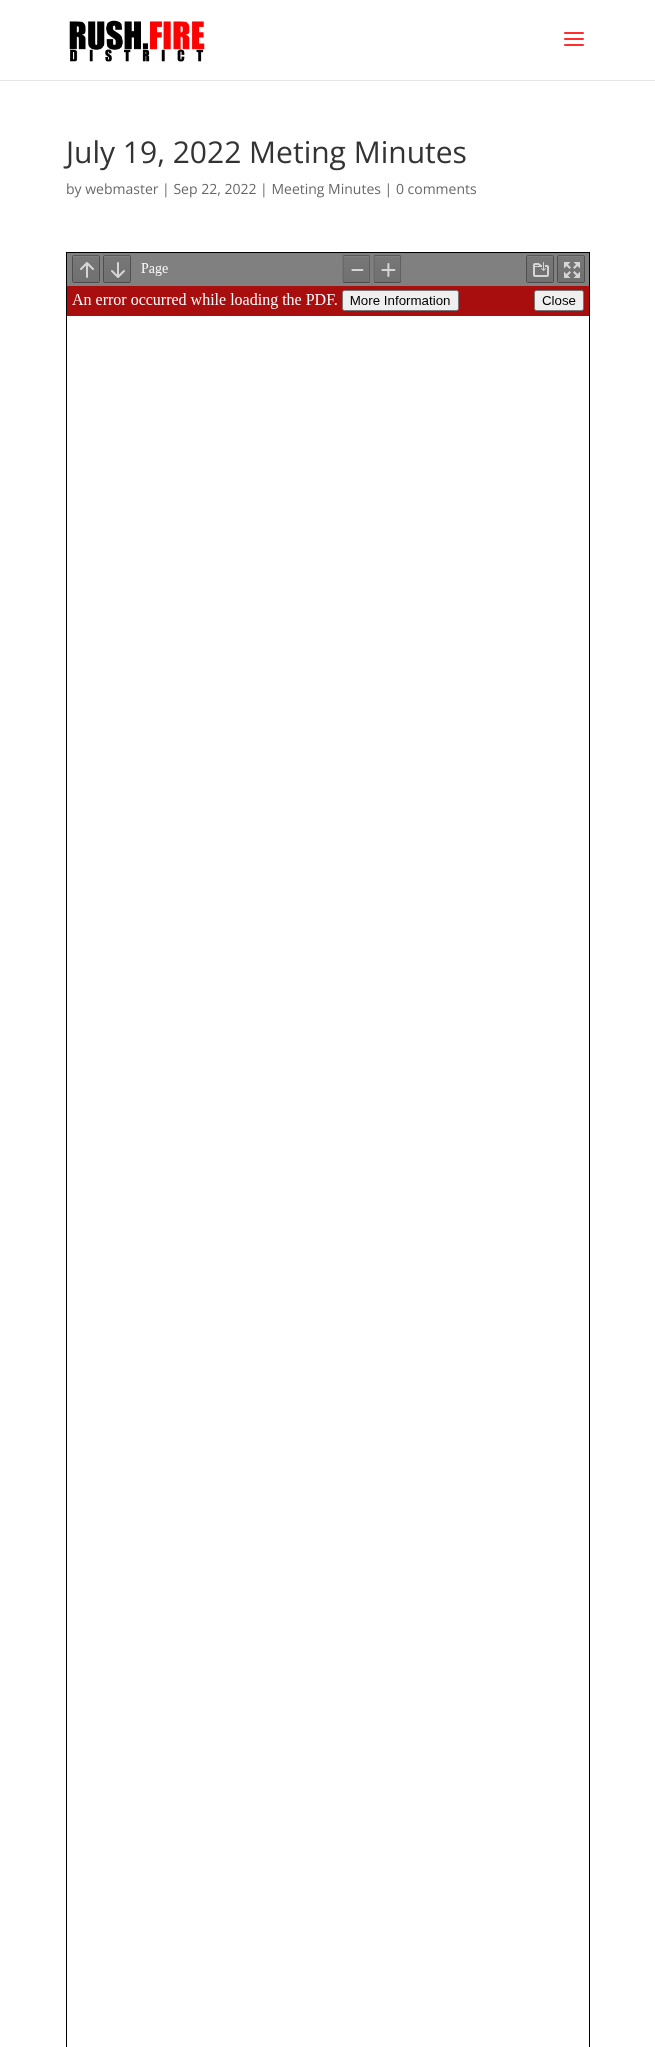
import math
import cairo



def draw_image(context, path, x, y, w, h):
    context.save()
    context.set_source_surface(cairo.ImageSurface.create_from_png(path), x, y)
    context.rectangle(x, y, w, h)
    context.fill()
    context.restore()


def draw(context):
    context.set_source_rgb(1, 1, 1)
    context.paint()
    context.set_source_rgb(230 / 255, 230 / 255, 230 / 255)
    context.rectangle(0, 80, 655, 1)
    context.fill()
    draw_image(context, "images/1.png", 69, 20, 136, 42)
    draw_image(context, "images/2.png", 564, 32, 20, 14)
    draw_image(context, "images/3.png", 66, 252, 524, 1795)
    context.select_font_face("Open Sans")
    context.set_font_size(30)
    context.set_source_rgb(51 / 255, 51 / 255, 51 / 255)
    context.move_to(66, 163)
    context.show_text("July 19, 2022 Meting Minutes")
    context.set_font_size(14)
    context.set_source_rgb(102 / 255, 102 / 255, 102 / 255)
    context.move_to(66, 194)
    context.show_text("by webmaster | Sep 22, 2022 | Meeting Minutes | 0 comments")


surface = cairo.ImageSurface(cairo.Format.RGB24, 655, 2047)
context = cairo.Context(surface)
options = cairo.FontOptions()
options.set_hint_metrics(cairo.HintMetrics.OFF)
options.set_hint_style(cairo.HintStyle.NONE)
context.set_font_options(options)
context.set_miter_limit(4)
draw(context)
surface.write_to_png("out.png")
